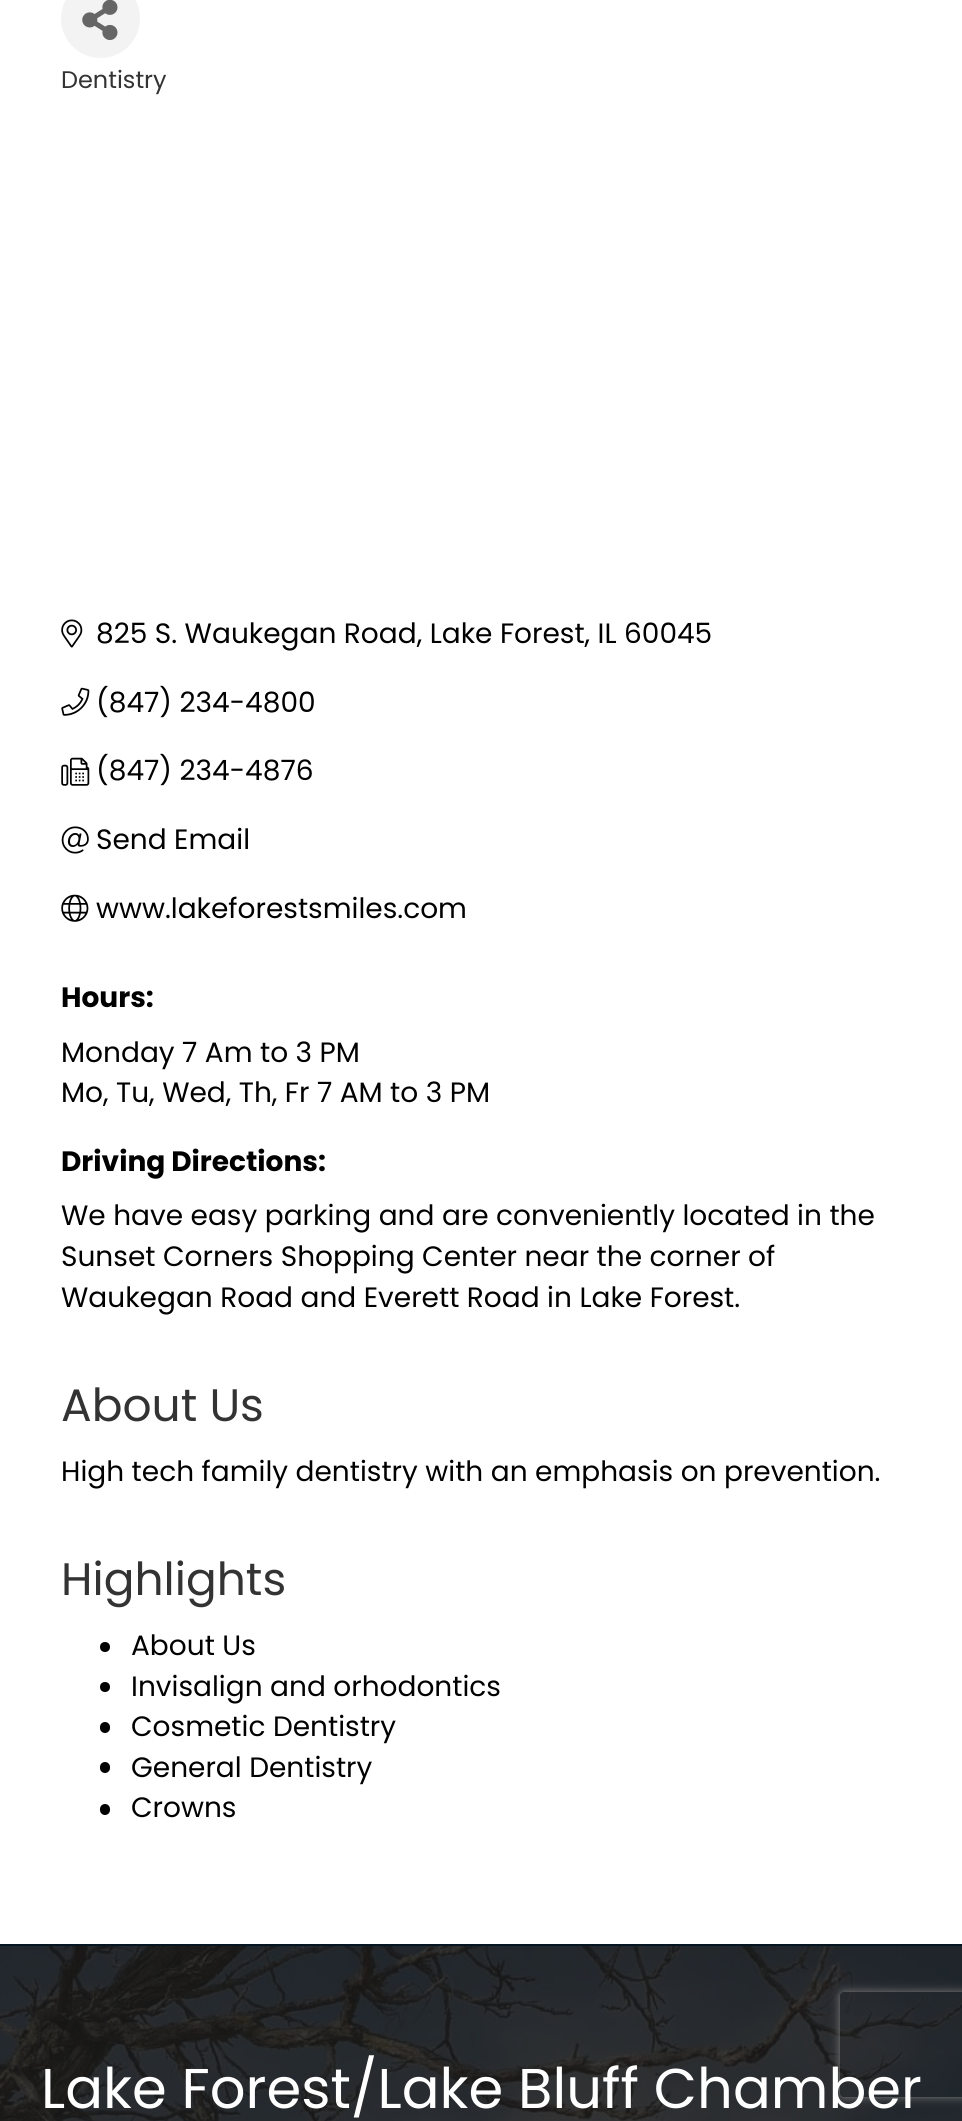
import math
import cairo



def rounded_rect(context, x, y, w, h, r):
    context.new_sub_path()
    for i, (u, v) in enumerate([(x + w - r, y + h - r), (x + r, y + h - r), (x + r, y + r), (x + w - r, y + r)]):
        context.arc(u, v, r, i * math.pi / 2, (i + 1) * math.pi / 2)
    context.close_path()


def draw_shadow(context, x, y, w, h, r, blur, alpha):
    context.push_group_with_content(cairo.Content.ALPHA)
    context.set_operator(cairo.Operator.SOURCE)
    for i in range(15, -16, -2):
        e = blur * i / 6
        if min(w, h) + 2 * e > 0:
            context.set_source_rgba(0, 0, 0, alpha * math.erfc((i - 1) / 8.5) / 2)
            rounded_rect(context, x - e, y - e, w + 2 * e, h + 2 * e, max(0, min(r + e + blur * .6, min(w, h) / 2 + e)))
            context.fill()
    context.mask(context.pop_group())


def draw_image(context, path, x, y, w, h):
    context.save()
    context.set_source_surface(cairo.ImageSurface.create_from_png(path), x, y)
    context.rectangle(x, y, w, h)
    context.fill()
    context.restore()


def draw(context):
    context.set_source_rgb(1, 1, 1)
    context.paint()
    context.set_source_rgb(243 / 255, 243 / 255, 243 / 255)
    context.arc(100.5, 18.5, 39.5, 0, 2 * math.pi)
    context.fill()
    draw_image(context, "images/1.png", 82, 0, 36, 40)
    draw_image(context, "images/2.png", 61, 619, 22, 29)
    draw_image(context, "images/3.png", 61, 687, 29, 29)
    draw_image(context, "images/4.png", 61, 757, 29, 29)
    draw_image(context, "images/5.png", 61, 826, 28, 28)
    draw_image(context, "images/6.png", 61, 894, 28, 28)
    context.set_source_rgb(0, 0, 0)
    context.arc(105, 1647, 5, 0, 2 * math.pi)
    context.fill()
    context.arc(105, 1687, 5, 0, 2 * math.pi)
    context.fill()
    rounded_rect(context, 100, 1722, 10, 11, 5)
    context.fill()
    rounded_rect(context, 100, 1762, 10, 11, 5)
    context.fill()
    rounded_rect(context, 100, 1804, 10, 11, 5)
    context.fill()
    draw_image(context, "images/7.png", 0, 1946, 962, 175)
    context.set_source_rgb(5 / 255, 22 / 255, 34 / 255)
    context.rectangle(0, 1944, 962, 2)
    context.fill()
    context.save()
    context.set_fill_rule(cairo.FillRule.EVEN_ODD)
    context.new_path()
    context.move_to(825, 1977)
    context.line_to(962, 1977)
    context.line_to(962, 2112)
    context.line_to(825, 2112)
    context.close_path()
    context.move_to(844, 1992)
    context.line_to(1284, 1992)
    context.curve_to(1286, 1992, 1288, 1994, 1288, 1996)
    context.line_to(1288, 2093)
    context.curve_to(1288, 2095, 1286, 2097, 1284, 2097)
    context.line_to(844, 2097)
    context.curve_to(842, 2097, 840, 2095, 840, 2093)
    context.line_to(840, 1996)
    context.curve_to(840, 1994, 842, 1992, 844, 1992)
    context.close_path()
    context.clip()
    context.set_source_rgb(128 / 255, 128 / 255, 128 / 255)
    draw_shadow(context, 840, 1992, 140, 105, 4, 4.5, 1)
    context.restore()
    context.select_font_face("Poppins")
    context.set_font_size(24)
    context.set_source_rgb(51 / 255, 51 / 255, 51 / 255)
    context.move_to(61, 88)
    context.show_text("Dentistry")
    context.set_font_size(28)
    context.set_source_rgb(0, 0, 0)
    context.move_to(96, 643)
    context.show_text("825 S. Waukegan Road, Lake Forest, IL 60045")
    context.move_to(96, 712)
    context.show_text("(847) 234-4800")
    context.move_to(96, 780)
    context.show_text("(847) 234-4876")
    context.move_to(96, 849)
    context.show_text("Send Email")
    context.move_to(96, 918)
    context.show_text("www.lakeforestsmiles.com")
    context.select_font_face("Poppins", cairo.FontSlant.NORMAL, cairo.FontWeight.BOLD)
    context.move_to(61, 1007)
    context.show_text("Hours:")
    context.select_font_face("Poppins")
    context.move_to(61, 1062)
    context.show_text("Monday 7 Am to 3 PM")
    context.move_to(61, 1102)
    context.show_text("Mo, Tu, Wed, Th, Fr 7 AM to 3 PM")
    context.select_font_face("Poppins", cairo.FontSlant.NORMAL, cairo.FontWeight.BOLD)
    context.move_to(61, 1171)
    context.show_text("Driving Directions:")
    context.select_font_face("Poppins")
    context.move_to(61, 1225)
    context.show_text("We have easy parking and are conveniently located in the")
    context.move_to(61, 1266)
    context.show_text("Sunset Corners Shopping Center near the corner of")
    context.move_to(61, 1307)
    context.show_text("Waukegan Road and Everett Road in Lake Forest.")
    context.set_font_size(45.5)
    context.set_source_rgb(51 / 255, 51 / 255, 51 / 255)
    context.move_to(61, 1421)
    context.show_text("About Us")
    context.set_font_size(28)
    context.set_source_rgb(0, 0, 0)
    context.move_to(61, 1481)
    context.show_text("High tech family dentistry with an emphasis on prevention.")
    context.set_font_size(45.5)
    context.set_source_rgb(51 / 255, 51 / 255, 51 / 255)
    context.move_to(61, 1595)
    context.show_text("Highlights")
    context.set_font_size(28)
    context.set_source_rgb(0, 0, 0)
    context.move_to(131, 1655)
    context.show_text("About Us")
    context.move_to(131, 1696)
    context.show_text("Invisalign and orhodontics")
    context.move_to(131, 1736)
    context.show_text("Cosmetic Dentistry")
    context.move_to(131, 1777)
    context.show_text("General Dentistry")
    context.move_to(131, 1817)
    context.show_text("Crowns")
    context.set_font_size(56)
    context.set_source_rgb(1, 1, 1)
    context.move_to(41, 2108)
    context.show_text("Lake Forest/Lake Bluff Chamber")


surface = cairo.ImageSurface(cairo.Format.RGB24, 962, 2121)
context = cairo.Context(surface)
options = cairo.FontOptions()
options.set_hint_metrics(cairo.HintMetrics.OFF)
options.set_hint_style(cairo.HintStyle.NONE)
context.set_font_options(options)
context.set_miter_limit(4)
draw(context)
surface.write_to_png("out.png")
